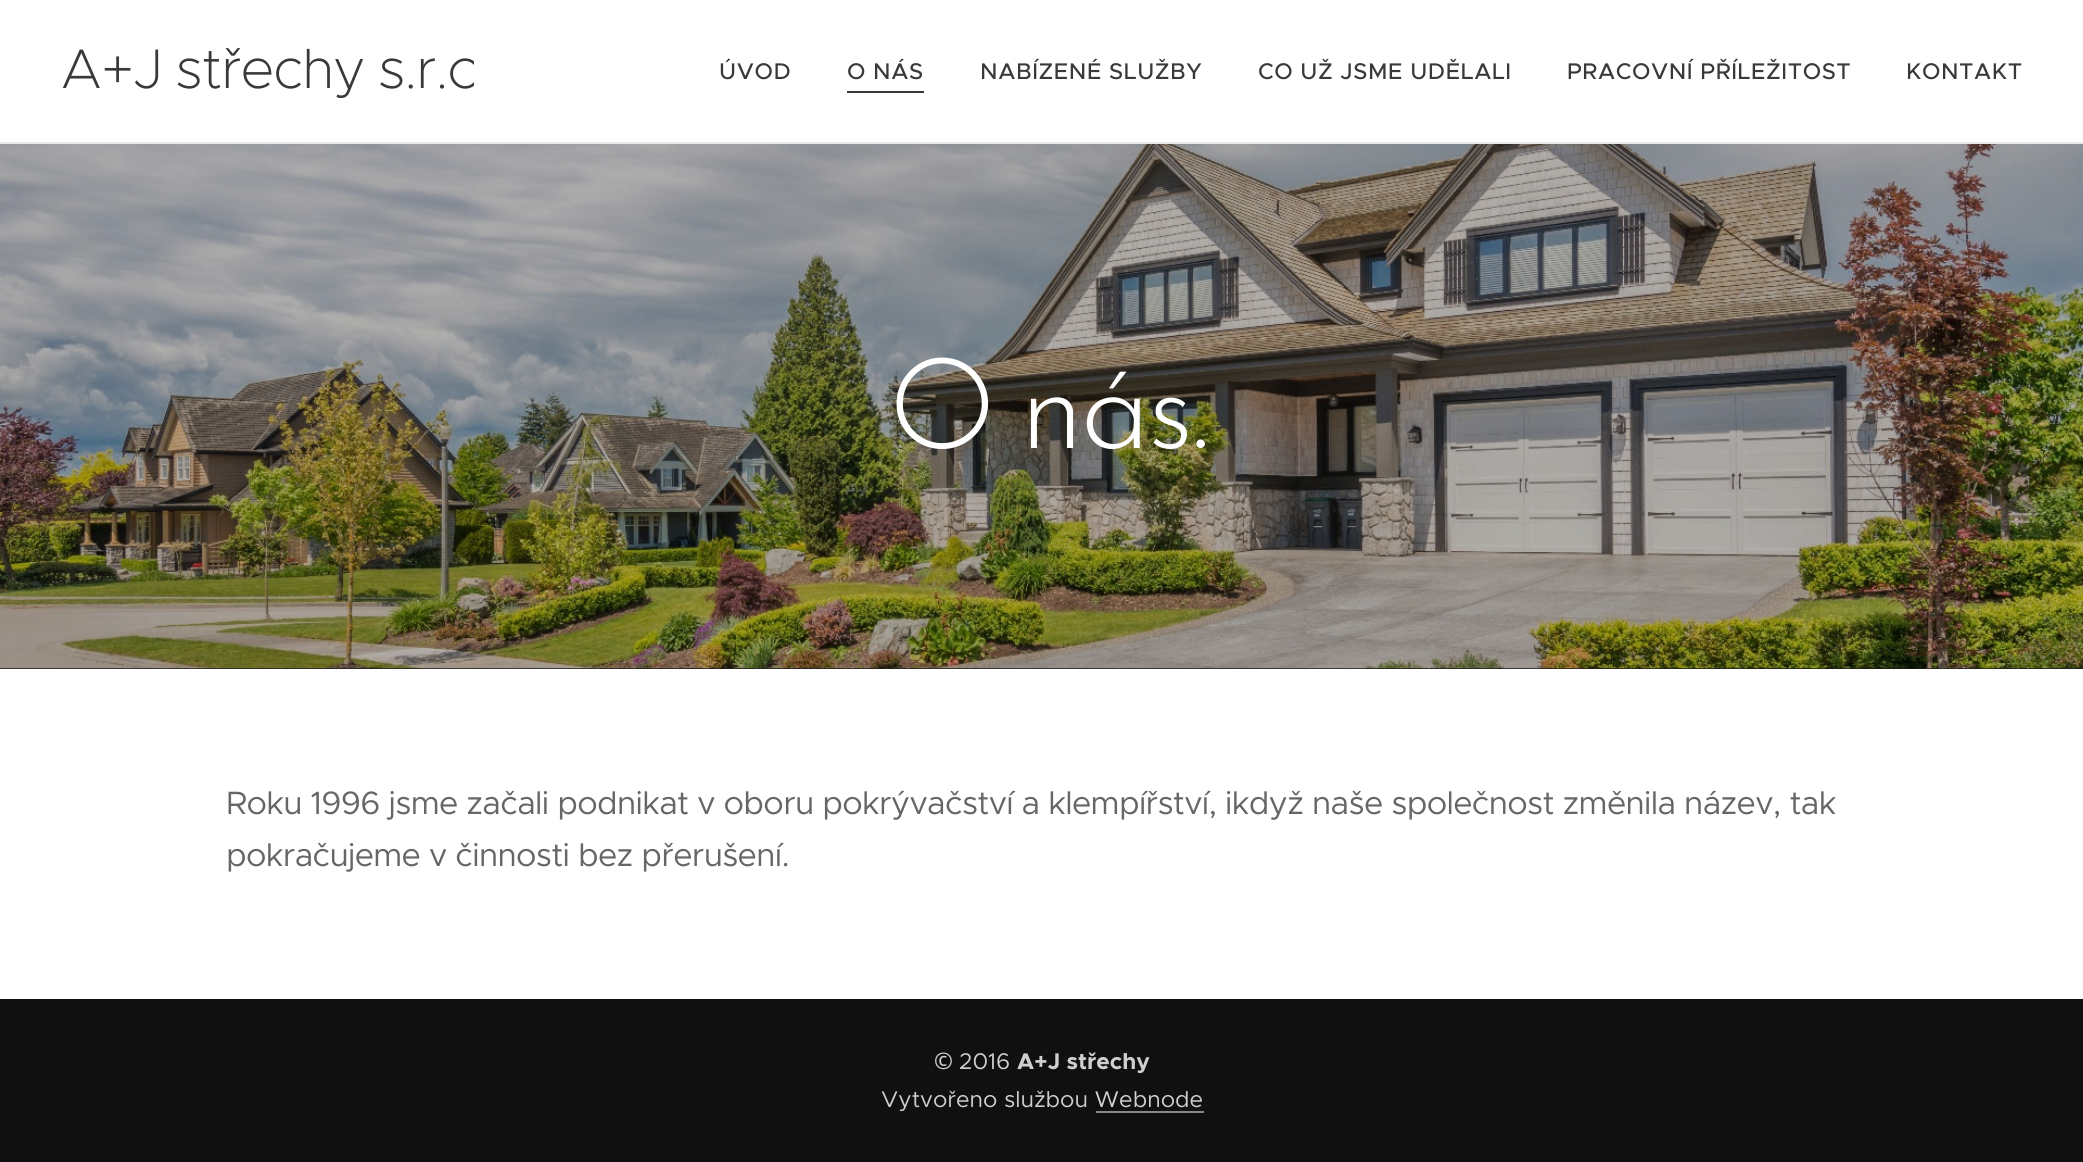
import math
import cairo



def draw_spaced(context, x, y, s, letter, word):
    context.move_to(x, y)
    for ch in s:
        context.show_text(ch)
        context.rel_move_to(letter + word * (ch == ' '), 0)


def draw_image(context, path, x, y, w, h):
    context.save()
    context.set_source_surface(cairo.ImageSurface.create_from_png(path), x, y)
    context.rectangle(x, y, w, h)
    context.fill()
    context.restore()


def draw(context):
    context.set_source_rgb(1, 1, 1)
    context.paint()
    context.set_source_rgb(57 / 255, 57 / 255, 57 / 255)
    context.rectangle(847, 91, 77, 2)
    context.fill()
    context.set_source_rgb(232 / 255, 232 / 255, 232 / 255)
    context.rectangle(0, 142, 2083, 2)
    context.fill()
    context.set_source_rgb(27 / 255, 27 / 255, 27 / 255)
    context.rectangle(0, 668, 2083, 1)
    context.fill()
    draw_image(context, "images/1.png", 0, 144, 2083, 525)
    context.set_source_rgb(16 / 255, 16 / 255, 16 / 255)
    context.rectangle(0, 999, 2083, 163)
    context.fill()
    context.save()
    context.rectangle(49, 30, 425, 84)
    context.clip()
    context.select_font_face("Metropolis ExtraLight")
    context.set_font_size(56)
    context.set_source_rgb(57 / 255, 57 / 255, 57 / 255)
    draw_spaced(context, 61, 88, "A+J střechy s.r.o", -0.65, -3)
    context.restore()
    context.select_font_face("Metropolis Medium")
    context.set_font_size(22.75)
    context.set_source_rgb(57 / 255, 57 / 255, 57 / 255)
    draw_spaced(context, 719, 79, "ÚVOD", 0.6, 0)
    draw_spaced(context, 847, 79, "O NÁS", 0.6, 0)
    draw_spaced(context, 980, 79, "NABÍZENÉ SLUŽBY", 0.6, 0)
    draw_spaced(context, 1258, 79, "CO UŽ JSME UDĚLALI", 0.6, 0)
    draw_spaced(context, 1567, 79, "PRACOVNÍ PŘÍLEŽITOST", 0.6, 0)
    draw_spaced(context, 1906, 79, "KONTAKT", 0.6, 0)
    context.select_font_face("Josefin Sans Light")
    context.set_font_size(126)
    context.set_source_rgb(1, 1, 1)
    draw_spaced(context, 888, 448, "O nás.", -3.75, -8)
    context.select_font_face("Metropolis")
    context.set_font_size(32.4)
    context.set_source_rgb(102 / 255, 102 / 255, 102 / 255)
    draw_spaced(context, 226, 814, "Roku 1996 jsme začali podnikat v oboru pokrývačství a klempířství, ikdyž naše společnost změnila název, tak", -0.65, 0)
    draw_spaced(context, 226, 866, "pokračujeme v činnosti bez přerušení.", -0.65, 0)
    context.select_font_face("Noto Sans")
    context.set_font_size(22.75)
    context.set_source_rgb(207 / 255, 207 / 255, 207 / 255)
    context.move_to(934, 1069)
    context.show_text("©")
    context.select_font_face("Metropolis")
    context.move_to(959, 1069)
    context.show_text("2016")
    context.select_font_face("Metropolis", cairo.FontSlant.NORMAL, cairo.FontWeight.BOLD)
    context.move_to(1017, 1069)
    context.show_text("A+J střechy")
    context.select_font_face("Metropolis")
    context.move_to(881, 1107)
    context.show_text("Vytvořeno službou Webnode")
    context.set_source_rgb(136 / 255, 136 / 255, 136 / 255)
    context.rectangle(1096, 1111, 108, 2)
    context.fill()


surface = cairo.ImageSurface(cairo.Format.RGB24, 2083, 1162)
context = cairo.Context(surface)
options = cairo.FontOptions()
options.set_hint_metrics(cairo.HintMetrics.OFF)
options.set_hint_style(cairo.HintStyle.NONE)
context.set_font_options(options)
context.set_miter_limit(4)
draw(context)
surface.write_to_png("out.png")
